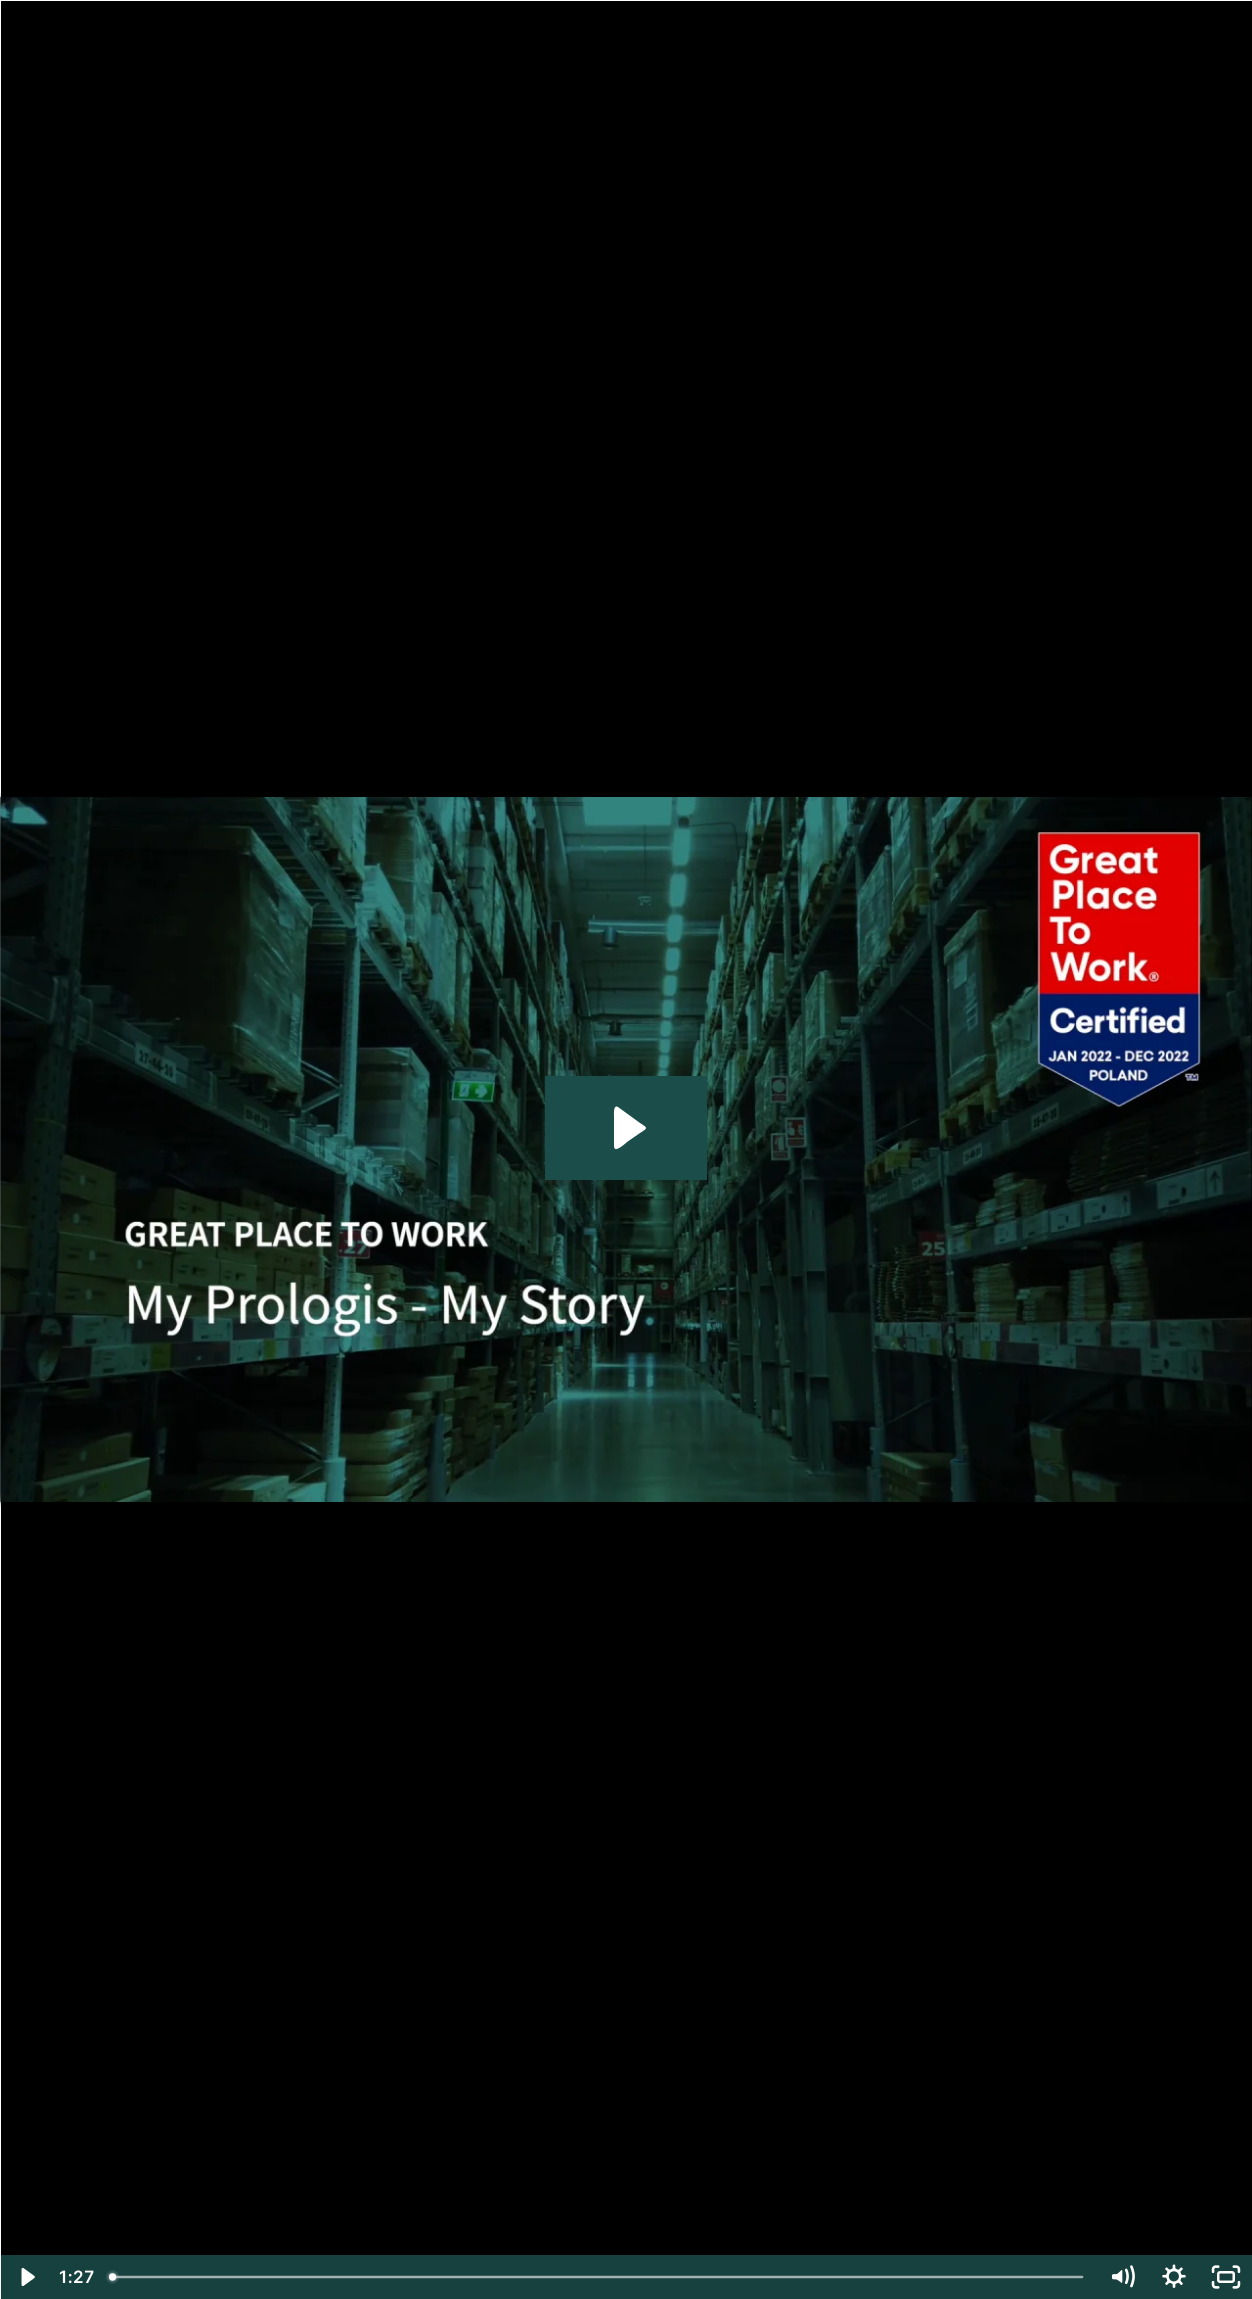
import math
import cairo



def draw_spaced(context, x, y, s, letter, word):
    context.move_to(x, y)
    for ch in s:
        context.show_text(ch)
        context.rel_move_to(letter + word * (ch == ' '), 0)


def draw_image(context, path, x, y, w, h):
    context.save()
    context.set_source_surface(cairo.ImageSurface.create_from_png(path), x, y)
    context.rectangle(x, y, w, h)
    context.fill()
    context.restore()


def draw(context):
    context.set_source_rgb(1, 1, 1)
    context.paint()
    draw_image(context, "images/1.png", 0, 791, 1, 717)
    context.set_source_rgb(0, 0, 0)
    context.rectangle(1, 1, 1251, 2254)
    context.fill()
    draw_image(context, "images/3.png", 0, 793, 1, 713)
    draw_image(context, "images/2.png", 0, 797, 1252, 705)
    context.set_source_rgb(27 / 255, 77 / 255, 74 / 255)
    context.rectangle(545, 1076, 162, 104)
    context.fill()
    context.set_source_rgb(1, 1, 1)
    context.set_fill_rule(cairo.FillRule.EVEN_ODD)
    context.new_path()
    context.move_to(618, 1107)
    context.curve_to(613, 1104, 614, 1115, 614, 1116)
    context.line_to(614, 1147)
    context.line_to(615, 1149)
    context.curve_to(618, 1150, 625, 1144, 627, 1142)
    context.line_to(640, 1133)
    context.curve_to(648, 1128, 648, 1128, 640, 1123)
    context.close_path()
    context.fill()
    context.set_source_rgb(23 / 255, 65 / 255, 63 / 255)
    context.rectangle(1, 2255, 1251, 44)
    context.fill()
    draw_image(context, "images/4.png", 21, 2267, 14, 20)
    draw_image(context, "images/5.png", 106, 2270, 978, 14)
    draw_image(context, "images/6.png", 1111, 2265, 24, 23)
    draw_image(context, "images/7.png", 1162, 2264, 24, 24)
    draw_image(context, "images/8.png", 1211, 2265, 30, 24)
    context.select_font_face("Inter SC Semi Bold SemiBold")
    context.set_font_size(17)
    context.set_source_rgb(1, 1, 1)
    draw_spaced(context, 59, 2283, "1:27", 0.5, 0)


surface = cairo.ImageSurface(cairo.Format.RGB24, 1252, 2299)
context = cairo.Context(surface)
options = cairo.FontOptions()
options.set_hint_metrics(cairo.HintMetrics.OFF)
options.set_hint_style(cairo.HintStyle.NONE)
context.set_font_options(options)
context.set_miter_limit(4)
draw(context)
surface.write_to_png("out.png")
